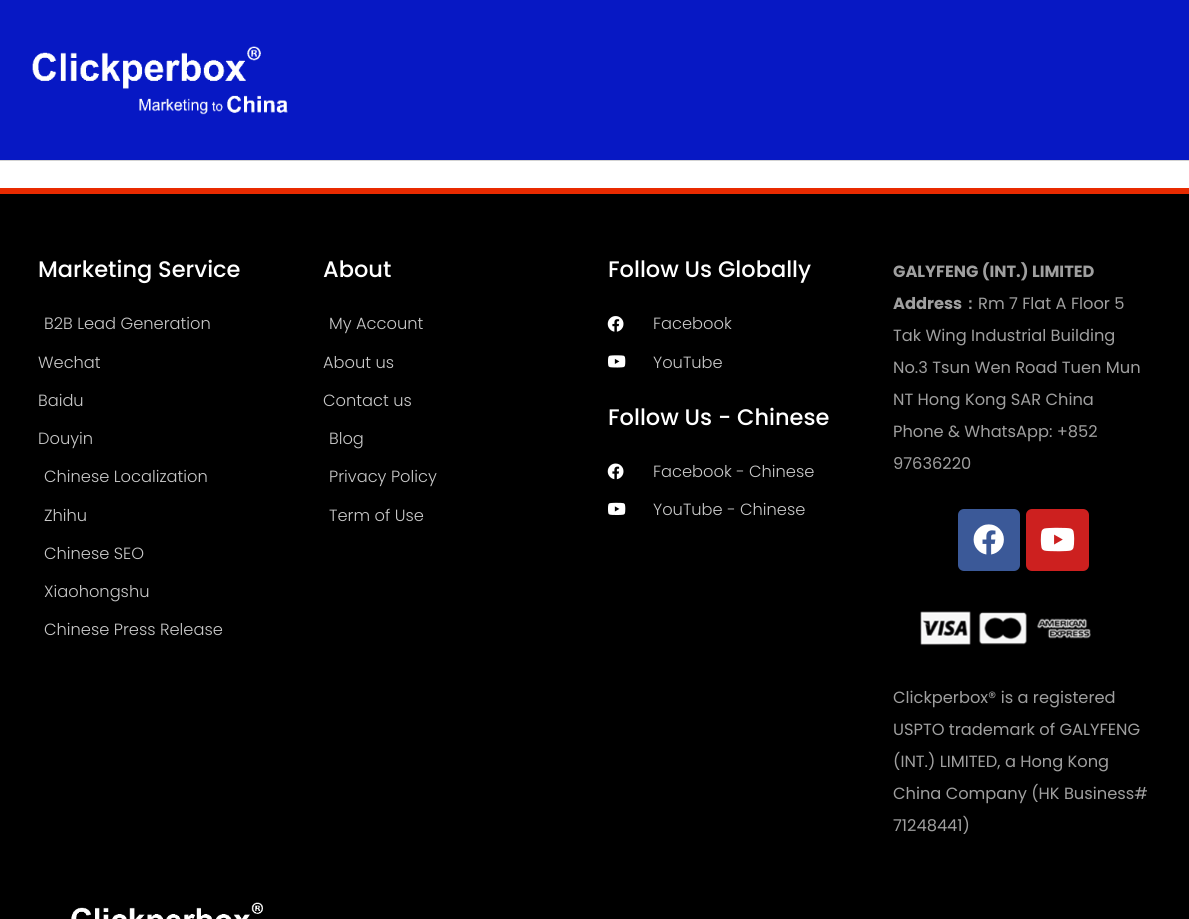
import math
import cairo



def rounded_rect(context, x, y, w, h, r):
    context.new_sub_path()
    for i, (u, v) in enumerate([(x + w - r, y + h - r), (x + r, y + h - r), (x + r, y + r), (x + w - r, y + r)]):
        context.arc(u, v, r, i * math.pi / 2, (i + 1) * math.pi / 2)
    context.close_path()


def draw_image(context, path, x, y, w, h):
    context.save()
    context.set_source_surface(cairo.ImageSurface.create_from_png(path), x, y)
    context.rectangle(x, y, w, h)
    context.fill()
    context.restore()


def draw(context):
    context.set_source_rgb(1, 1, 1)
    context.paint()
    context.set_source_rgb(7 / 255, 24 / 255, 196 / 255)
    context.rectangle(0, 0, 1189, 160)
    context.fill()
    context.set_source_rgb(211 / 255, 211 / 255, 211 / 255)
    context.rectangle(0, 160, 1189, 1)
    context.fill()
    draw_image(context, "images/1.png", 32, 46, 256, 69)
    context.set_source_rgb(0, 0, 0)
    context.rectangle(0, 194, 1189, 725)
    context.fill()
    context.set_source_rgb(232 / 255, 42 / 255, 0)
    context.rectangle(0, 188, 1189, 6)
    context.fill()
    draw_image(context, "images/2.png", 607, 316, 17, 16)
    draw_image(context, "images/3.png", 608, 355, 18, 13)
    draw_image(context, "images/4.png", 607, 463, 17, 17)
    draw_image(context, "images/5.png", 608, 502, 18, 13)
    context.set_source_rgb(59 / 255, 89 / 255, 152 / 255)
    rounded_rect(context, 958, 509, 62, 62, 6)
    context.fill()
    draw_image(context, "images/6.png", 973, 524, 31, 31)
    context.set_source_rgb(205 / 255, 32 / 255, 31 / 255)
    rounded_rect(context, 1026, 509, 63, 62, 6)
    context.fill()
    draw_image(context, "images/7.png", 1040, 527, 35, 25)
    draw_image(context, "images/8.png", 920, 611, 171, 35)
    draw_image(context, "images/9.png", 71, 902, 192, 17)
    context.select_font_face("Poppins Medium")
    context.set_font_size(22.5)
    context.set_source_rgb(1, 1, 1)
    context.move_to(38, 277)
    context.show_text("Marketing Service")
    context.select_font_face("Poppins Light")
    context.set_font_size(16.25)
    context.set_source_rgb(201 / 255, 201 / 255, 201 / 255)
    context.move_to(44, 329)
    context.show_text("B2B Lead Generation")
    context.move_to(38, 368)
    context.show_text("Wechat")
    context.move_to(38, 406)
    context.show_text("Baidu")
    context.move_to(38, 444)
    context.show_text("Douyin")
    context.move_to(44, 482)
    context.show_text("Chinese Localization")
    context.move_to(44, 521)
    context.show_text("Zhihu")
    context.move_to(44, 559)
    context.show_text("Chinese SEO")
    context.move_to(44, 597)
    context.show_text("Xiaohongshu")
    context.move_to(44, 635)
    context.show_text("Chinese Press Release")
    context.select_font_face("Poppins Medium")
    context.set_font_size(22.5)
    context.set_source_rgb(1, 1, 1)
    context.move_to(323, 277)
    context.show_text("About")
    context.select_font_face("Poppins Light")
    context.set_font_size(16.25)
    context.set_source_rgb(201 / 255, 201 / 255, 201 / 255)
    context.move_to(329, 329)
    context.show_text("My Account")
    context.move_to(323, 368)
    context.show_text("About us")
    context.move_to(323, 406)
    context.show_text("Contact us")
    context.move_to(329, 444)
    context.show_text("Blog")
    context.move_to(329, 482)
    context.show_text("Privacy Policy")
    context.move_to(329, 521)
    context.show_text("Term of Use")
    context.select_font_face("Poppins Medium")
    context.set_font_size(22.5)
    context.set_source_rgb(1, 1, 1)
    context.move_to(608, 277)
    context.show_text("Follow Us Globally")
    context.select_font_face("Poppins Light")
    context.set_font_size(16.25)
    context.set_source_rgb(201 / 255, 201 / 255, 201 / 255)
    context.move_to(653, 329)
    context.show_text("Facebook")
    context.move_to(653, 368)
    context.show_text("YouTube")
    context.select_font_face("Poppins Medium")
    context.set_font_size(22.5)
    context.set_source_rgb(1, 1, 1)
    context.move_to(608, 425)
    context.show_text("Follow Us - Chinese")
    context.select_font_face("Poppins Light")
    context.set_font_size(16.25)
    context.set_source_rgb(201 / 255, 201 / 255, 201 / 255)
    context.move_to(653, 477)
    context.show_text("Facebook - Chinese")
    context.move_to(653, 515)
    context.show_text("YouTube - Chinese")
    context.select_font_face("Poppins", cairo.FontSlant.NORMAL, cairo.FontWeight.BOLD)
    context.set_source_rgb(159 / 255, 159 / 255, 159 / 255)
    context.move_to(893, 277)
    context.show_text("GALYFENG (INT.) LIMITED")
    context.move_to(893, 309)
    context.show_text("Address")
    context.select_font_face("WenQuanYi Zen Hei", cairo.FontSlant.NORMAL, cairo.FontWeight.BOLD)
    context.move_to(962, 309)
    context.show_text("：")
    context.select_font_face("Poppins")
    context.move_to(978, 309)
    context.show_text("Rm 7 Flat A Floor 5")
    context.move_to(893, 341)
    context.show_text("Tak Wing Industrial Building")
    context.move_to(893, 373)
    context.show_text("No.3 Tsun Wen Road Tuen Mun")
    context.move_to(893, 405)
    context.show_text("NT Hong Kong SAR China")
    context.move_to(893, 437)
    context.show_text("Phone & WhatsApp: +852")
    context.move_to(893, 469)
    context.show_text("97636220")
    context.move_to(893, 703)
    context.show_text("Clickperbox® is a registered")
    context.move_to(893, 735)
    context.show_text("USPTO trademark of GALYFENG")
    context.move_to(893, 767)
    context.show_text("(INT.) LIMITED, a Hong Kong")
    context.move_to(893, 799)
    context.show_text("China Company (HK Business#")
    context.move_to(893, 831)
    context.show_text("71248441)")


surface = cairo.ImageSurface(cairo.Format.RGB24, 1189, 919)
context = cairo.Context(surface)
options = cairo.FontOptions()
options.set_hint_metrics(cairo.HintMetrics.OFF)
options.set_hint_style(cairo.HintStyle.NONE)
context.set_font_options(options)
context.set_miter_limit(4)
draw(context)
surface.write_to_png("out.png")
